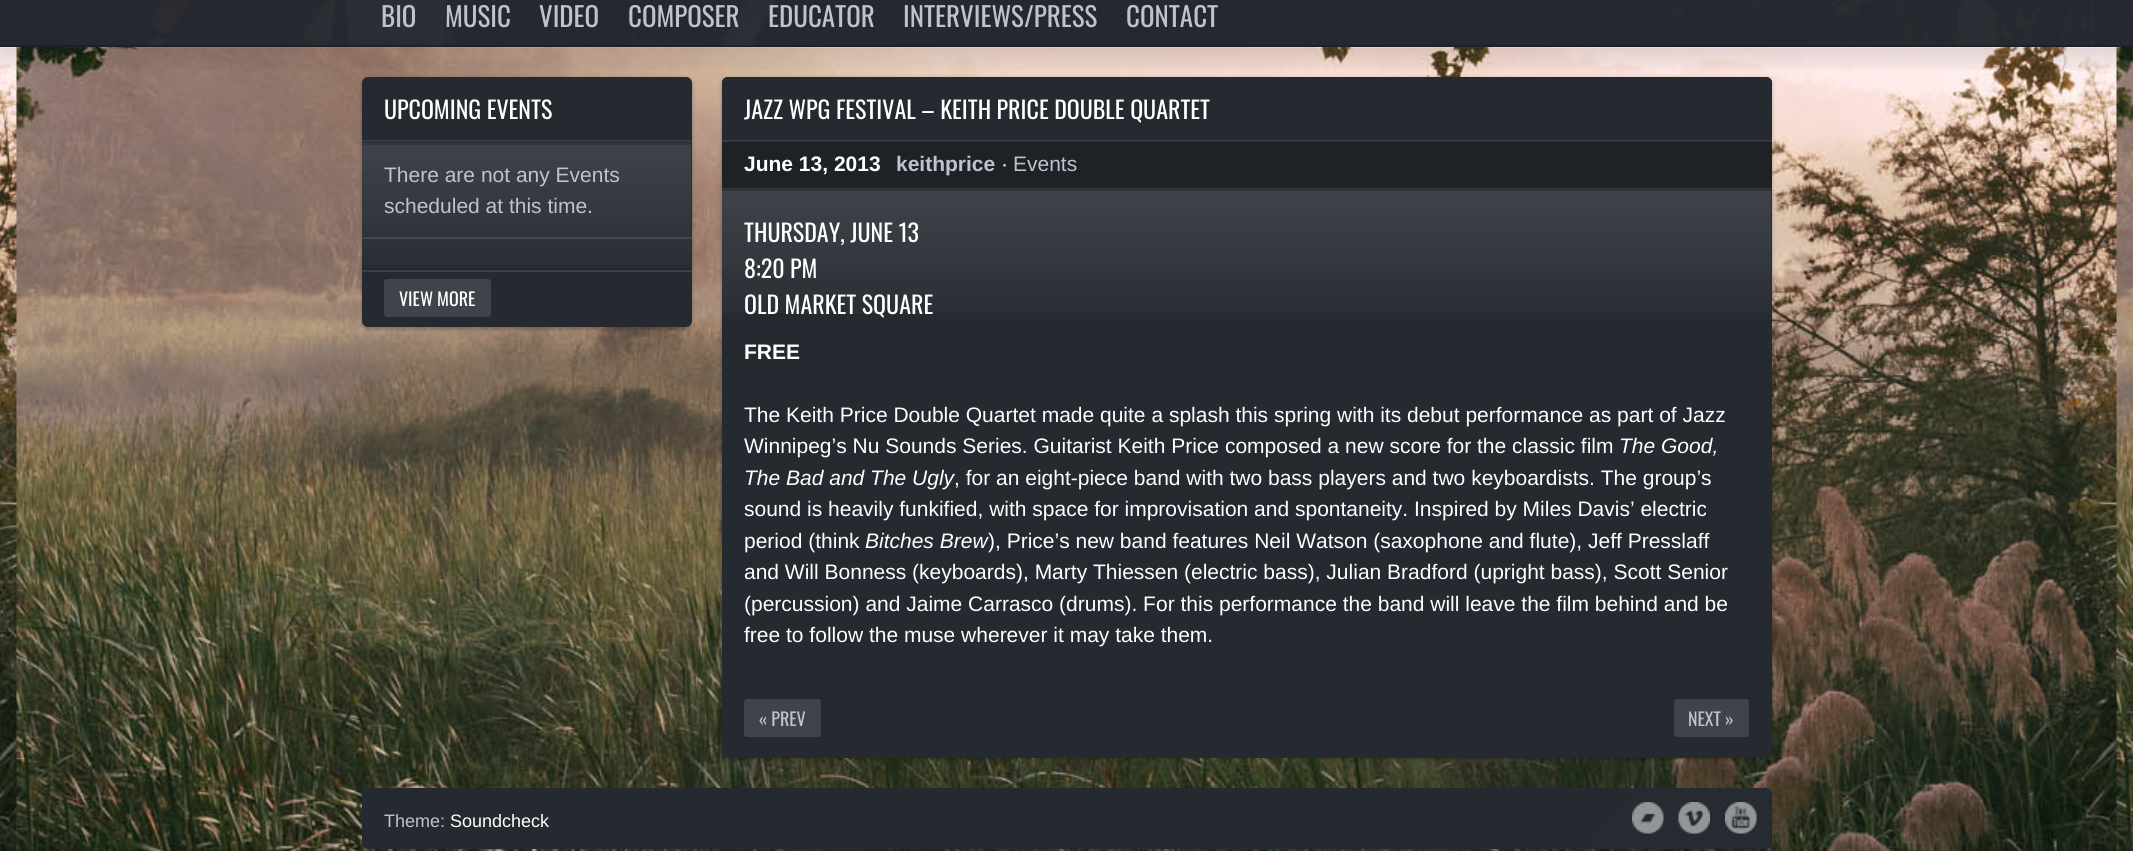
import math
import cairo



def rounded_rect(context, x, y, w, h, r):
    context.new_sub_path()
    for i, (u, v) in enumerate([(x + w - r, y + h - r), (x + r, y + h - r), (x + r, y + r), (x + w - r, y + r)]):
        context.arc(u, v, r, i * math.pi / 2, (i + 1) * math.pi / 2)
    context.close_path()


def draw_shadow(context, x, y, w, h, r, blur, alpha):
    context.push_group_with_content(cairo.Content.ALPHA)
    context.set_operator(cairo.Operator.SOURCE)
    for i in range(15, -16, -2):
        e = blur * i / 6
        if min(w, h) + 2 * e > 0:
            context.set_source_rgba(0, 0, 0, alpha * math.erfc((i - 1) / 8.5) / 2)
            rounded_rect(context, x - e, y - e, w + 2 * e, h + 2 * e, max(0, min(r + e + blur * .6, min(w, h) / 2 + e)))
            context.fill()
    context.mask(context.pop_group())


def draw_image(context, path, x, y, w, h):
    context.save()
    context.set_source_surface(cairo.ImageSurface.create_from_png(path), x, y)
    context.rectangle(x, y, w, h)
    context.fill()
    context.restore()


def draw(context):
    context.set_source_rgb(1, 1, 1)
    context.paint()
    draw_image(context, "images/1.png", 0, 47, 2133, 804)
    draw_image(context, "images/2.png", 0, 47, 2133, 23)
    context.set_source_rgb(0, 0, 0)
    context.rectangle(0, 0, 2133, 47)
    context.fill()
    draw_image(context, "images/3.png", 127, 0, 2006, 46)
    context.set_source_rgba(37 / 255, 42 / 255, 49 / 255, 0.97)
    context.rectangle(0, 0, 2133, 47)
    context.fill()
    context.set_source_rgba(0, 0, 0, 0.2)
    context.rectangle(0, 45, 2133, 2)
    context.fill()
    context.set_source_rgb(0, 0, 0)
    draw_shadow(context, 362, 78, 330, 251, 6, 2, 0.25)
    context.set_source_rgb(37 / 255, 42 / 255, 49 / 255)
    rounded_rect(context, 362, 77, 330, 250, 6)
    context.fill()
    context.set_source_rgb(59 / 255, 63 / 255, 70 / 255)
    context.rectangle(362, 140, 330, 2)
    context.fill()
    draw_image(context, "images/4.png", 361, 142, 331, 123)
    context.set_source_rgba(0, 0, 0, 0.2)
    context.rectangle(362, 141, 330, 2)
    context.fill()
    context.rectangle(362, 143, 330, 2)
    context.fill()
    context.set_source_rgba(1, 1, 1, 0.1)
    context.rectangle(362, 237, 330, 2)
    context.fill()
    context.set_source_rgb(30 / 255, 34 / 255, 39 / 255)
    context.new_path()
    context.move_to(362, 269)
    context.line_to(362, 270)
    context.line_to(692, 270)
    context.line_to(692, 326)
    context.line_to(692, 269)
    context.close_path()
    context.fill()
    context.set_source_rgb(59 / 255, 63 / 255, 70 / 255)
    context.rectangle(362, 270, 330, 2)
    context.fill()
    context.set_source_rgb(63 / 255, 67 / 255, 74 / 255)
    rounded_rect(context, 384, 279, 107, 38, 3)
    context.fill()
    context.set_source_rgb(0, 0, 0)
    draw_shadow(context, 722, 78, 1050, 681, 6, 2, 0.25)
    context.set_source_rgb(37 / 255, 42 / 255, 49 / 255)
    rounded_rect(context, 722, 77, 1050, 681, 6)
    context.fill()
    context.new_path()
    context.move_to(728, 77)
    context.line_to(1766, 77)
    context.curve_to(1769.5, 77, 1772, 79.5, 1772, 83)
    context.line_to(1772, 141)
    context.line_to(722, 141)
    context.line_to(722, 83)
    context.curve_to(722, 79.5, 724.5, 77, 728, 77)
    context.close_path()
    context.fill()
    context.set_source_rgb(59 / 255, 63 / 255, 70 / 255)
    context.rectangle(722, 140, 1050, 2)
    context.fill()
    context.set_source_rgba(0, 0, 0, 0.2)
    context.rectangle(722, 141, 1050, 48)
    context.fill()
    context.set_source_rgba(1, 1, 1, 0.1)
    context.rectangle(722, 188, 1050, 2)
    context.fill()
    draw_image(context, "images/5.png", 721, 190, 1051, 123)
    context.set_source_rgba(0, 0, 0, 0.2)
    context.rectangle(722, 189, 1050, 2)
    context.fill()
    context.set_source_rgb(63 / 255, 67 / 255, 74 / 255)
    rounded_rect(context, 744, 699, 77, 38, 3)
    context.fill()
    rounded_rect(context, 1674, 699, 75, 38, 3)
    context.fill()
    context.set_source_rgb(37 / 255, 42 / 255, 49 / 255)
    rounded_rect(context, 362, 788, 1410, 61, 6)
    context.fill()
    draw_image(context, "images/6.png", 1592, 787, 178, 60)
    draw_image(context, "images/7.png", 1632, 802, 32, 32)
    draw_image(context, "images/8.png", 1678, 802, 32, 32)
    draw_image(context, "images/9.png", 1725, 802, 32, 32)
    context.select_font_face("Oswald")
    context.set_font_size(27)
    context.set_source_rgb(190 / 255, 196 / 255, 204 / 255)
    context.move_to(381, 27)
    context.show_text("BIO")
    context.move_to(445, 27)
    context.show_text("MUSIC")
    context.move_to(539, 27)
    context.show_text("VIDEO")
    context.move_to(628, 27)
    context.show_text("COMPOSER")
    context.move_to(768, 27)
    context.show_text("EDUCATOR")
    context.move_to(903, 27)
    context.show_text("INTERVIEWS/PRESS")
    context.move_to(1126, 27)
    context.show_text("CONTACT")
    context.set_font_size(24)
    context.set_source_rgb(1, 1, 1)
    context.move_to(384, 119)
    context.show_text("UPCOMING EVENTS")
    context.select_font_face("Liberation Sans")
    context.set_font_size(21)
    context.set_source_rgb(190 / 255, 196 / 255, 204 / 255)
    context.move_to(384, 182)
    context.show_text("There are not any Events")
    context.move_to(384, 213)
    context.show_text("scheduled at this time.")
    context.select_font_face("Oswald")
    context.set_font_size(18)
    context.set_source_rgb(1, 1, 1)
    context.move_to(399, 306)
    context.show_text("VIEW MORE")
    context.set_font_size(24)
    context.move_to(744, 119)
    context.show_text("JAZZ WPG FESTIVAL – KEITH PRICE DOUBLE QUARTET")
    context.select_font_face("Liberation Sans", cairo.FontSlant.NORMAL, cairo.FontWeight.BOLD)
    context.set_font_size(21)
    context.move_to(744, 171)
    context.show_text("June 13, 2013")
    context.set_source_rgb(190 / 255, 196 / 255, 204 / 255)
    context.move_to(896, 171)
    context.show_text("keithprice")
    context.select_font_face("Liberation Sans")
    context.set_source_rgb(1, 1, 1)
    context.move_to(1001, 171)
    context.show_text("·")
    context.set_source_rgb(190 / 255, 196 / 255, 204 / 255)
    context.move_to(1013, 171)
    context.show_text("Events")
    context.select_font_face("Oswald")
    context.set_font_size(24)
    context.set_source_rgb(1, 1, 1)
    context.move_to(744, 242)
    context.show_text("THURSDAY, JUNE 13")
    context.move_to(744, 278)
    context.show_text("8:20 PM")
    context.move_to(744, 314)
    context.show_text("OLD MARKET SQUARE")
    context.select_font_face("Liberation Sans", cairo.FontSlant.NORMAL, cairo.FontWeight.BOLD)
    context.set_font_size(21)
    context.move_to(744, 359)
    context.show_text("FREE")
    context.select_font_face("Liberation Sans")
    context.move_to(744, 422)
    context.show_text("The Keith Price Double Quartet made quite a splash this spring with its debut performance as part of Jazz")
    context.move_to(744, 453)
    context.show_text("Winnipeg’s Nu Sounds Series. Guitarist Keith Price composed a new score for the classic film")
    context.select_font_face("Liberation Sans", cairo.FontSlant.ITALIC)
    context.move_to(1619, 453)
    context.show_text("The Good,")
    context.move_to(744, 485)
    context.show_text("The Bad and The Ugly")
    context.select_font_face("Liberation Sans")
    context.move_to(954, 485)
    context.show_text(", for an eight-piece band with two bass players and two keyboardists. The group’s")
    context.move_to(744, 516)
    context.show_text("sound is heavily funkified, with space for improvisation and spontaneity. Inspired by Miles Davis’ electric")
    context.move_to(744, 548)
    context.show_text("period (think")
    context.select_font_face("Liberation Sans", cairo.FontSlant.ITALIC)
    context.move_to(865, 548)
    context.show_text("Bitches Brew")
    context.select_font_face("Liberation Sans")
    context.move_to(988, 548)
    context.show_text("), Price’s new band features Neil Watson (saxophone and flute), Jeff Presslaff")
    context.move_to(744, 579)
    context.show_text("and Will Bonness (keyboards), Marty Thiessen (electric bass), Julian Bradford (upright bass), Scott Senior")
    context.move_to(744, 611)
    context.show_text("(percussion) and Jaime Carrasco (drums). For this performance the band will leave the film behind and be")
    context.move_to(744, 642)
    context.show_text("free to follow the muse wherever it may take them.")
    context.select_font_face("Oswald")
    context.set_font_size(18)
    context.set_source_rgb(190 / 255, 196 / 255, 204 / 255)
    context.move_to(759, 726)
    context.show_text("« PREV")
    context.move_to(1688, 726)
    context.show_text("NEXT »")
    context.select_font_face("Liberation Sans")
    context.move_to(384, 827)
    context.show_text("Theme:")
    context.set_source_rgb(1, 1, 1)
    context.move_to(450, 827)
    context.show_text("Soundcheck")


surface = cairo.ImageSurface(cairo.Format.RGB24, 2133, 851)
context = cairo.Context(surface)
options = cairo.FontOptions()
options.set_hint_metrics(cairo.HintMetrics.OFF)
options.set_hint_style(cairo.HintStyle.NONE)
context.set_font_options(options)
context.set_miter_limit(4)
draw(context)
surface.write_to_png("out.png")
